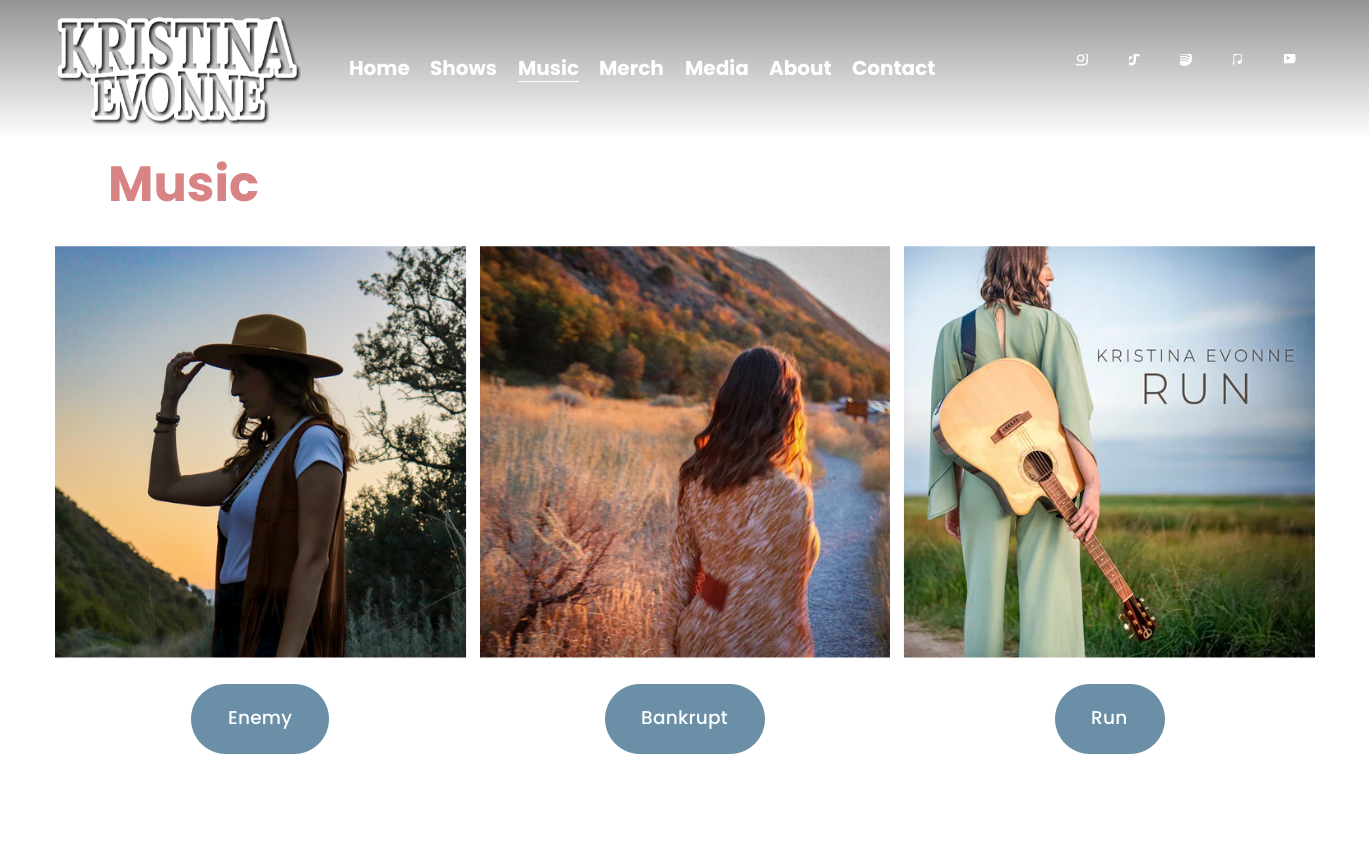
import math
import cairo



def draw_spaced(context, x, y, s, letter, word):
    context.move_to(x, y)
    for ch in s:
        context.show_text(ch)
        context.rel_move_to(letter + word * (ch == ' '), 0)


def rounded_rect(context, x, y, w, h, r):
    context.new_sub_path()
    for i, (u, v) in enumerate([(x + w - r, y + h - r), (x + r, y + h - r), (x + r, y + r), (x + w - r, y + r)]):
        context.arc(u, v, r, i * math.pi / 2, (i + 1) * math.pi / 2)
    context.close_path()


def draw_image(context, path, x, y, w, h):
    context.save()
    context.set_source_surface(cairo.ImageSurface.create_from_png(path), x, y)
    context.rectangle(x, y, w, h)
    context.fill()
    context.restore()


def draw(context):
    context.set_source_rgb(1, 1, 1)
    context.paint()
    gradient = cairo.LinearGradient(685, 0, 685, 139)
    gradient.add_color_stop_rgba(0, 148 / 255, 148 / 255, 148 / 255, 1)
    gradient.add_color_stop_rgba(1, 1, 1, 1, 1)
    context.set_source(gradient)
    context.rectangle(0, 0, 1369, 136)
    context.fill()
    draw_image(context, "images/1.png", 57, 17, 244, 108)
    context.set_source_rgb(1, 1, 1)
    context.rectangle(518, 81, 61, 1)
    context.fill()
    draw_image(context, "images/2.png", 1076, 54, 12, 12)
    draw_image(context, "images/3.png", 1129, 54, 11, 12)
    draw_image(context, "images/4.png", 1180, 54, 13, 12)
    draw_image(context, "images/5.png", 1233, 54, 9, 11)
    draw_image(context, "images/6.png", 1284, 54, 12, 10)
    draw_image(context, "images/7.png", 55, 246, 412, 412)
    draw_image(context, "images/8.png", 480, 246, 410, 412)
    draw_image(context, "images/9.png", 903, 246, 412, 412)
    context.set_source_rgb(106 / 255, 143 / 255, 166 / 255)
    rounded_rect(context, 191, 684, 138, 70, 35)
    context.fill()
    rounded_rect(context, 605, 684, 160, 70, 35)
    context.fill()
    rounded_rect(context, 1055, 684, 110, 70, 35)
    context.fill()
    context.select_font_face("Poppins", cairo.FontSlant.NORMAL, cairo.FontWeight.BOLD)
    context.set_font_size(20)
    context.set_source_rgb(1, 1, 1)
    context.move_to(349, 75)
    context.show_text("Home")
    context.move_to(430, 75)
    context.show_text("Shows")
    context.move_to(518, 75)
    context.show_text("Music")
    context.move_to(599, 75)
    context.show_text("Merch")
    context.move_to(685, 75)
    context.show_text("Media")
    context.move_to(769, 75)
    context.show_text("About")
    context.move_to(852, 75)
    context.show_text("Contact")
    context.set_font_size(49.5)
    context.set_source_rgb(216 / 255, 132 / 255, 132 / 255)
    context.move_to(108, 201)
    context.show_text("Music")
    context.select_font_face("Poppins Medium")
    context.set_font_size(18.5)
    context.set_source_rgb(1, 1, 1)
    draw_spaced(context, 228, 724, "Enemy", 0.25, 0)
    draw_spaced(context, 641, 724, "Bankrupt", 0.25, 0)
    draw_spaced(context, 1091, 724, "Run", 0.25, 0)


surface = cairo.ImageSurface(cairo.Format.RGB24, 1369, 859)
context = cairo.Context(surface)
options = cairo.FontOptions()
options.set_hint_metrics(cairo.HintMetrics.OFF)
options.set_hint_style(cairo.HintStyle.NONE)
context.set_font_options(options)
context.set_miter_limit(4)
draw(context)
surface.write_to_png("out.png")
